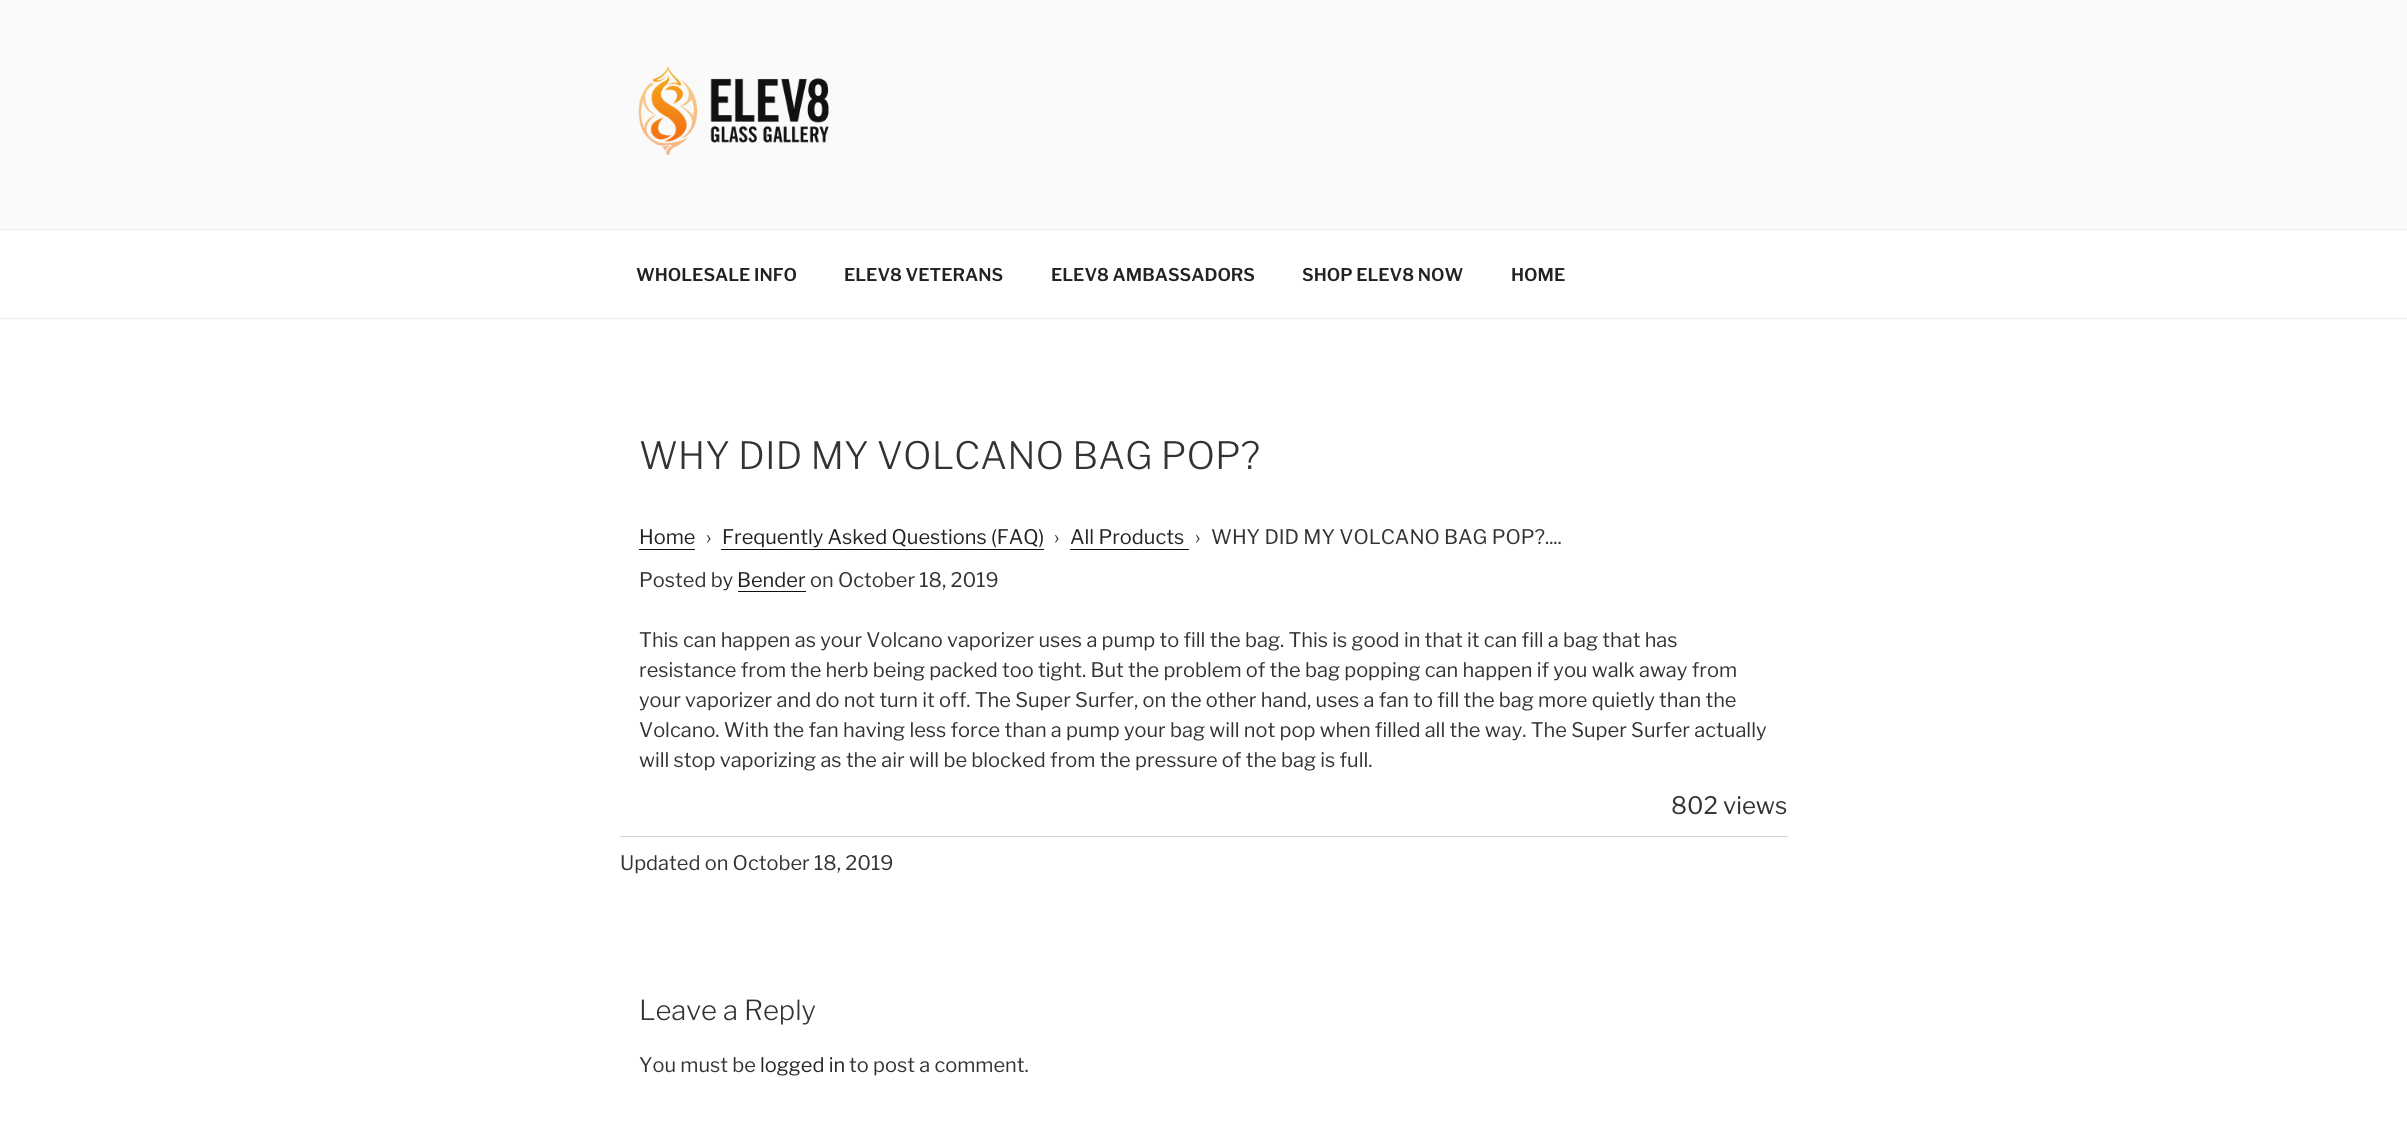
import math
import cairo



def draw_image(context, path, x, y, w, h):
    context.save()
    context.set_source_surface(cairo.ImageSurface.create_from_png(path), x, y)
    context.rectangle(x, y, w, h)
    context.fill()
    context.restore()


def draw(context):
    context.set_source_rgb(1, 1, 1)
    context.paint()
    context.set_source_rgb(250 / 255, 250 / 255, 250 / 255)
    context.rectangle(0, 0, 2407, 229)
    context.fill()
    draw_image(context, "images/1.png", 638, 66, 191, 90)
    context.set_source_rgb(238 / 255, 238 / 255, 238 / 255)
    context.rectangle(0, 229, 2407, 1)
    context.fill()
    context.rectangle(0, 318, 2407, 1)
    context.fill()
    context.set_source_rgb(15 / 255, 15 / 255, 15 / 255)
    context.rectangle(639, 549, 56, 1)
    context.fill()
    context.rectangle(721, 549, 323, 1)
    context.fill()
    context.rectangle(1070, 549, 119, 1)
    context.fill()
    context.rectangle(738, 591, 68, 1)
    context.fill()
    context.set_source_rgb(209 / 255, 209 / 255, 209 / 255)
    context.rectangle(620, 836, 1168, 1)
    context.fill()
    context.select_font_face("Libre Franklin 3 Thin")
    context.set_font_size(17.5)
    context.set_source_rgb(34 / 255, 34 / 255, 34 / 255)
    context.move_to(636, 281)
    context.show_text("WHOLESALE INFO")
    context.move_to(844, 281)
    context.show_text("ELEV8 VETERANS")
    context.move_to(1051, 281)
    context.show_text("ELEV8 AMBASSADORS")
    context.move_to(1302, 281)
    context.show_text("SHOP ELEV8 NOW")
    context.move_to(1511, 281)
    context.show_text("HOME")
    context.select_font_face("Libre Franklin Thin")
    context.set_font_size(37.5)
    context.set_source_rgb(51 / 255, 51 / 255, 51 / 255)
    context.move_to(639, 469)
    context.show_text("WHY DID MY VOLCANO BAG POP?")
    context.select_font_face("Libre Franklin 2 Thin")
    context.set_font_size(20)
    context.set_source_rgb(34 / 255, 34 / 255, 34 / 255)
    context.move_to(639, 544)
    context.show_text("Home")
    context.set_source_rgb(51 / 255, 51 / 255, 51 / 255)
    context.move_to(706, 544)
    context.show_text("›")
    context.set_source_rgb(34 / 255, 34 / 255, 34 / 255)
    context.move_to(722, 544)
    context.show_text("Frequently Asked Questions (FAQ)")
    context.set_source_rgb(51 / 255, 51 / 255, 51 / 255)
    context.move_to(1054, 544)
    context.show_text("›")
    context.set_source_rgb(34 / 255, 34 / 255, 34 / 255)
    context.move_to(1070, 544)
    context.show_text("All Products")
    context.set_source_rgb(51 / 255, 51 / 255, 51 / 255)
    context.move_to(1195, 544)
    context.show_text("›")
    context.move_to(1211, 544)
    context.show_text("WHY DID MY VOLCANO BAG POP?....")
    context.move_to(639, 587)
    context.show_text("Posted by")
    context.set_source_rgb(34 / 255, 34 / 255, 34 / 255)
    context.move_to(737, 587)
    context.show_text("Bender")
    context.set_source_rgb(51 / 255, 51 / 255, 51 / 255)
    context.move_to(810, 587)
    context.show_text("on October 18, 2019")
    context.move_to(639, 647)
    context.show_text("This can happen as your Volcano vaporizer uses a pump to fill the bag. This is good in that it can fill a bag that has")
    context.move_to(639, 677)
    context.show_text("resistance from the herb being packed too tight. But the problem of the bag popping can happen if you walk away from")
    context.move_to(639, 707)
    context.show_text("your vaporizer and do not turn it off. The Super Surfer, on the other hand, uses a fan to fill the bag more quietly than the")
    context.move_to(639, 737)
    context.show_text("Volcano. With the fan having less force than a pump your bag will not pop when filled all the way. The Super Surfer actually")
    context.move_to(639, 767)
    context.show_text("will stop vaporizing as the air will be blocked from the pressure of the bag is full.")
    context.set_font_size(24)
    context.move_to(1671, 814)
    context.show_text("802 views")
    context.set_font_size(20)
    context.move_to(620, 870)
    context.show_text("Updated on October 18, 2019")
    context.select_font_face("Libre Franklin Thin")
    context.set_font_size(27.5)
    context.move_to(639, 1020)
    context.show_text("Leave a Reply")
    context.select_font_face("Libre Franklin 2 Thin")
    context.set_font_size(20)
    context.move_to(639, 1072)
    context.show_text("You must be")
    context.set_source_rgb(34 / 255, 34 / 255, 34 / 255)
    context.move_to(760, 1072)
    context.show_text("logged in")
    context.set_source_rgb(51 / 255, 51 / 255, 51 / 255)
    context.move_to(849, 1072)
    context.show_text("to post a comment.")


surface = cairo.ImageSurface(cairo.Format.RGB24, 2407, 1126)
context = cairo.Context(surface)
options = cairo.FontOptions()
options.set_hint_metrics(cairo.HintMetrics.OFF)
options.set_hint_style(cairo.HintStyle.NONE)
context.set_font_options(options)
context.set_miter_limit(4)
draw(context)
surface.write_to_png("out.png")
